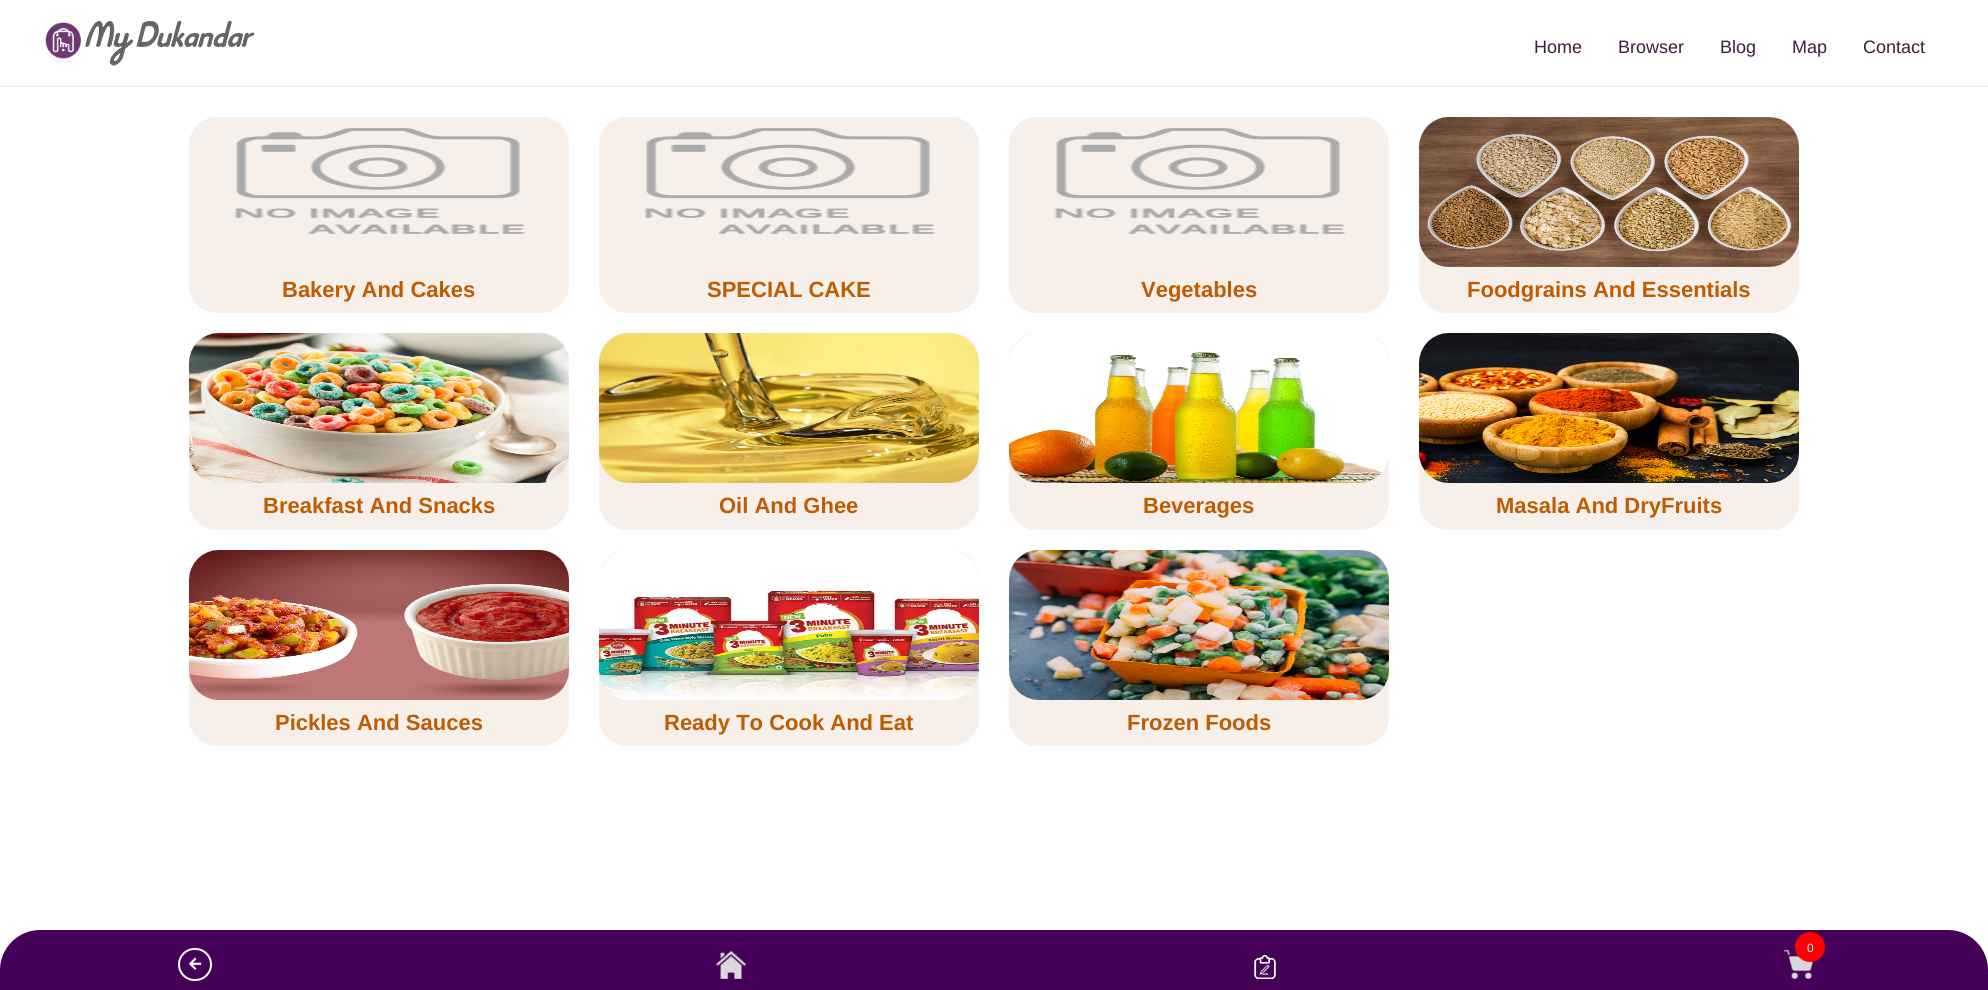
import math
import cairo



def rounded_rect(context, x, y, w, h, r):
    context.new_sub_path()
    for i, (u, v) in enumerate([(x + w - r, y + h - r), (x + r, y + h - r), (x + r, y + r), (x + w - r, y + r)]):
        context.arc(u, v, r, i * math.pi / 2, (i + 1) * math.pi / 2)
    context.close_path()


def draw_image(context, path, x, y, w, h):
    context.save()
    context.set_source_surface(cairo.ImageSurface.create_from_png(path), x, y)
    context.rectangle(x, y, w, h)
    context.fill()
    context.restore()


def draw(context):
    context.set_source_rgb(1, 1, 1)
    context.paint()
    context.set_source_rgb(239 / 255, 239 / 255, 239 / 255)
    context.rectangle(0, 85, 1988, 2)
    context.fill()
    draw_image(context, "images/1.png", 45, 22, 36, 41)
    draw_image(context, "images/2.png", 85, 20, 170, 46)
    context.set_source_rgb(247 / 255, 239 / 255, 233 / 255)
    rounded_rect(context, 189, 117, 380, 196, 28)
    context.fill()
    draw_image(context, "images/3.png", 234, 128, 292, 106)
    rounded_rect(context, 599, 117, 380, 196, 28)
    context.fill()
    draw_image(context, "images/3.png", 644, 128, 292, 106)
    rounded_rect(context, 1009, 117, 380, 196, 28)
    context.fill()
    draw_image(context, "images/4.png", 1054, 128, 292, 106)
    rounded_rect(context, 1419, 117, 380, 196, 28)
    context.fill()
    draw_image(context, "images/5.png", 1419, 117, 380, 150)
    rounded_rect(context, 189, 333, 380, 197, 28)
    context.fill()
    draw_image(context, "images/6.png", 189, 333, 380, 150)
    rounded_rect(context, 599, 333, 380, 197, 28)
    context.fill()
    draw_image(context, "images/7.png", 599, 333, 380, 150)
    rounded_rect(context, 1009, 333, 380, 197, 28)
    context.fill()
    draw_image(context, "images/8.png", 1009, 333, 380, 150)
    rounded_rect(context, 1419, 333, 380, 197, 28)
    context.fill()
    draw_image(context, "images/9.png", 1419, 333, 380, 150)
    rounded_rect(context, 189, 550, 380, 196, 28)
    context.fill()
    draw_image(context, "images/10.png", 189, 550, 380, 150)
    rounded_rect(context, 599, 550, 380, 196, 28)
    context.fill()
    draw_image(context, "images/11.png", 599, 550, 380, 150)
    rounded_rect(context, 1009, 550, 380, 196, 28)
    context.fill()
    draw_image(context, "images/12.png", 1009, 550, 380, 150)
    context.set_source_rgb(69 / 255, 0, 87 / 255)
    context.new_path()
    context.move_to(40, 930)
    context.line_to(1948, 930)
    context.curve_to(1970, 930, 1988, 948, 1988, 970)
    context.line_to(1988, 990)
    context.line_to(0, 990)
    context.line_to(0, 970)
    context.curve_to(0, 948, 18, 930, 40, 930)
    context.close_path()
    context.fill()
    rounded_rect(context, 179, 949, 32, 31, 15.5)
    context.set_source_rgb(1, 1, 1)
    context.stroke()
    draw_image(context, "images/13.png", 189, 957, 13, 13)
    draw_image(context, "images/14.png", 715, 950, 31, 29)
    draw_image(context, "images/15.png", 1254, 955, 22, 24)
    draw_image(context, "images/16.png", 1783, 949, 31, 30)
    context.set_source_rgb(1, 0, 0)
    context.arc(1810, 947, 15, 0, 2 * math.pi)
    context.fill()
    context.select_font_face("Liberation Sans")
    context.set_font_size(18)
    context.set_source_rgb(61 / 255, 30 / 255, 61 / 255)
    context.move_to(1534, 53)
    context.show_text("Home")
    context.move_to(1618, 53)
    context.show_text("Browser")
    context.move_to(1720, 53)
    context.show_text("Blog")
    context.move_to(1792, 53)
    context.show_text("Map")
    context.move_to(1863, 53)
    context.show_text("Contact")
    context.select_font_face("Liberation Sans", cairo.FontSlant.NORMAL, cairo.FontWeight.BOLD)
    context.set_font_size(22)
    context.set_source_rgb(191 / 255, 91 / 255, 1 / 255)
    context.move_to(282, 297)
    context.show_text("Bakery And Cakes")
    context.move_to(707, 297)
    context.show_text("SPECIAL CAKE")
    context.move_to(1141, 297)
    context.show_text("Vegetables")
    context.move_to(1467, 297)
    context.show_text("Foodgrains And Essentials")
    context.move_to(263, 513)
    context.show_text("Breakfast And Snacks")
    context.move_to(719, 513)
    context.show_text("Oil And Ghee")
    context.move_to(1143, 513)
    context.show_text("Beverages")
    context.move_to(1496, 513)
    context.show_text("Masala And DryFruits")
    context.move_to(275, 730)
    context.show_text("Pickles And Sauces")
    context.move_to(664, 730)
    context.show_text("Ready To Cook And Eat")
    context.move_to(1127, 730)
    context.show_text("Frozen Foods")
    context.select_font_face("Liberation Sans")
    context.set_font_size(12)
    context.set_source_rgb(1, 1, 1)
    context.move_to(1807, 952)
    context.show_text("0")


surface = cairo.ImageSurface(cairo.Format.RGB24, 1988, 990)
context = cairo.Context(surface)
options = cairo.FontOptions()
options.set_hint_metrics(cairo.HintMetrics.OFF)
options.set_hint_style(cairo.HintStyle.NONE)
context.set_font_options(options)
context.set_miter_limit(4)
draw(context)
surface.write_to_png("out.png")
